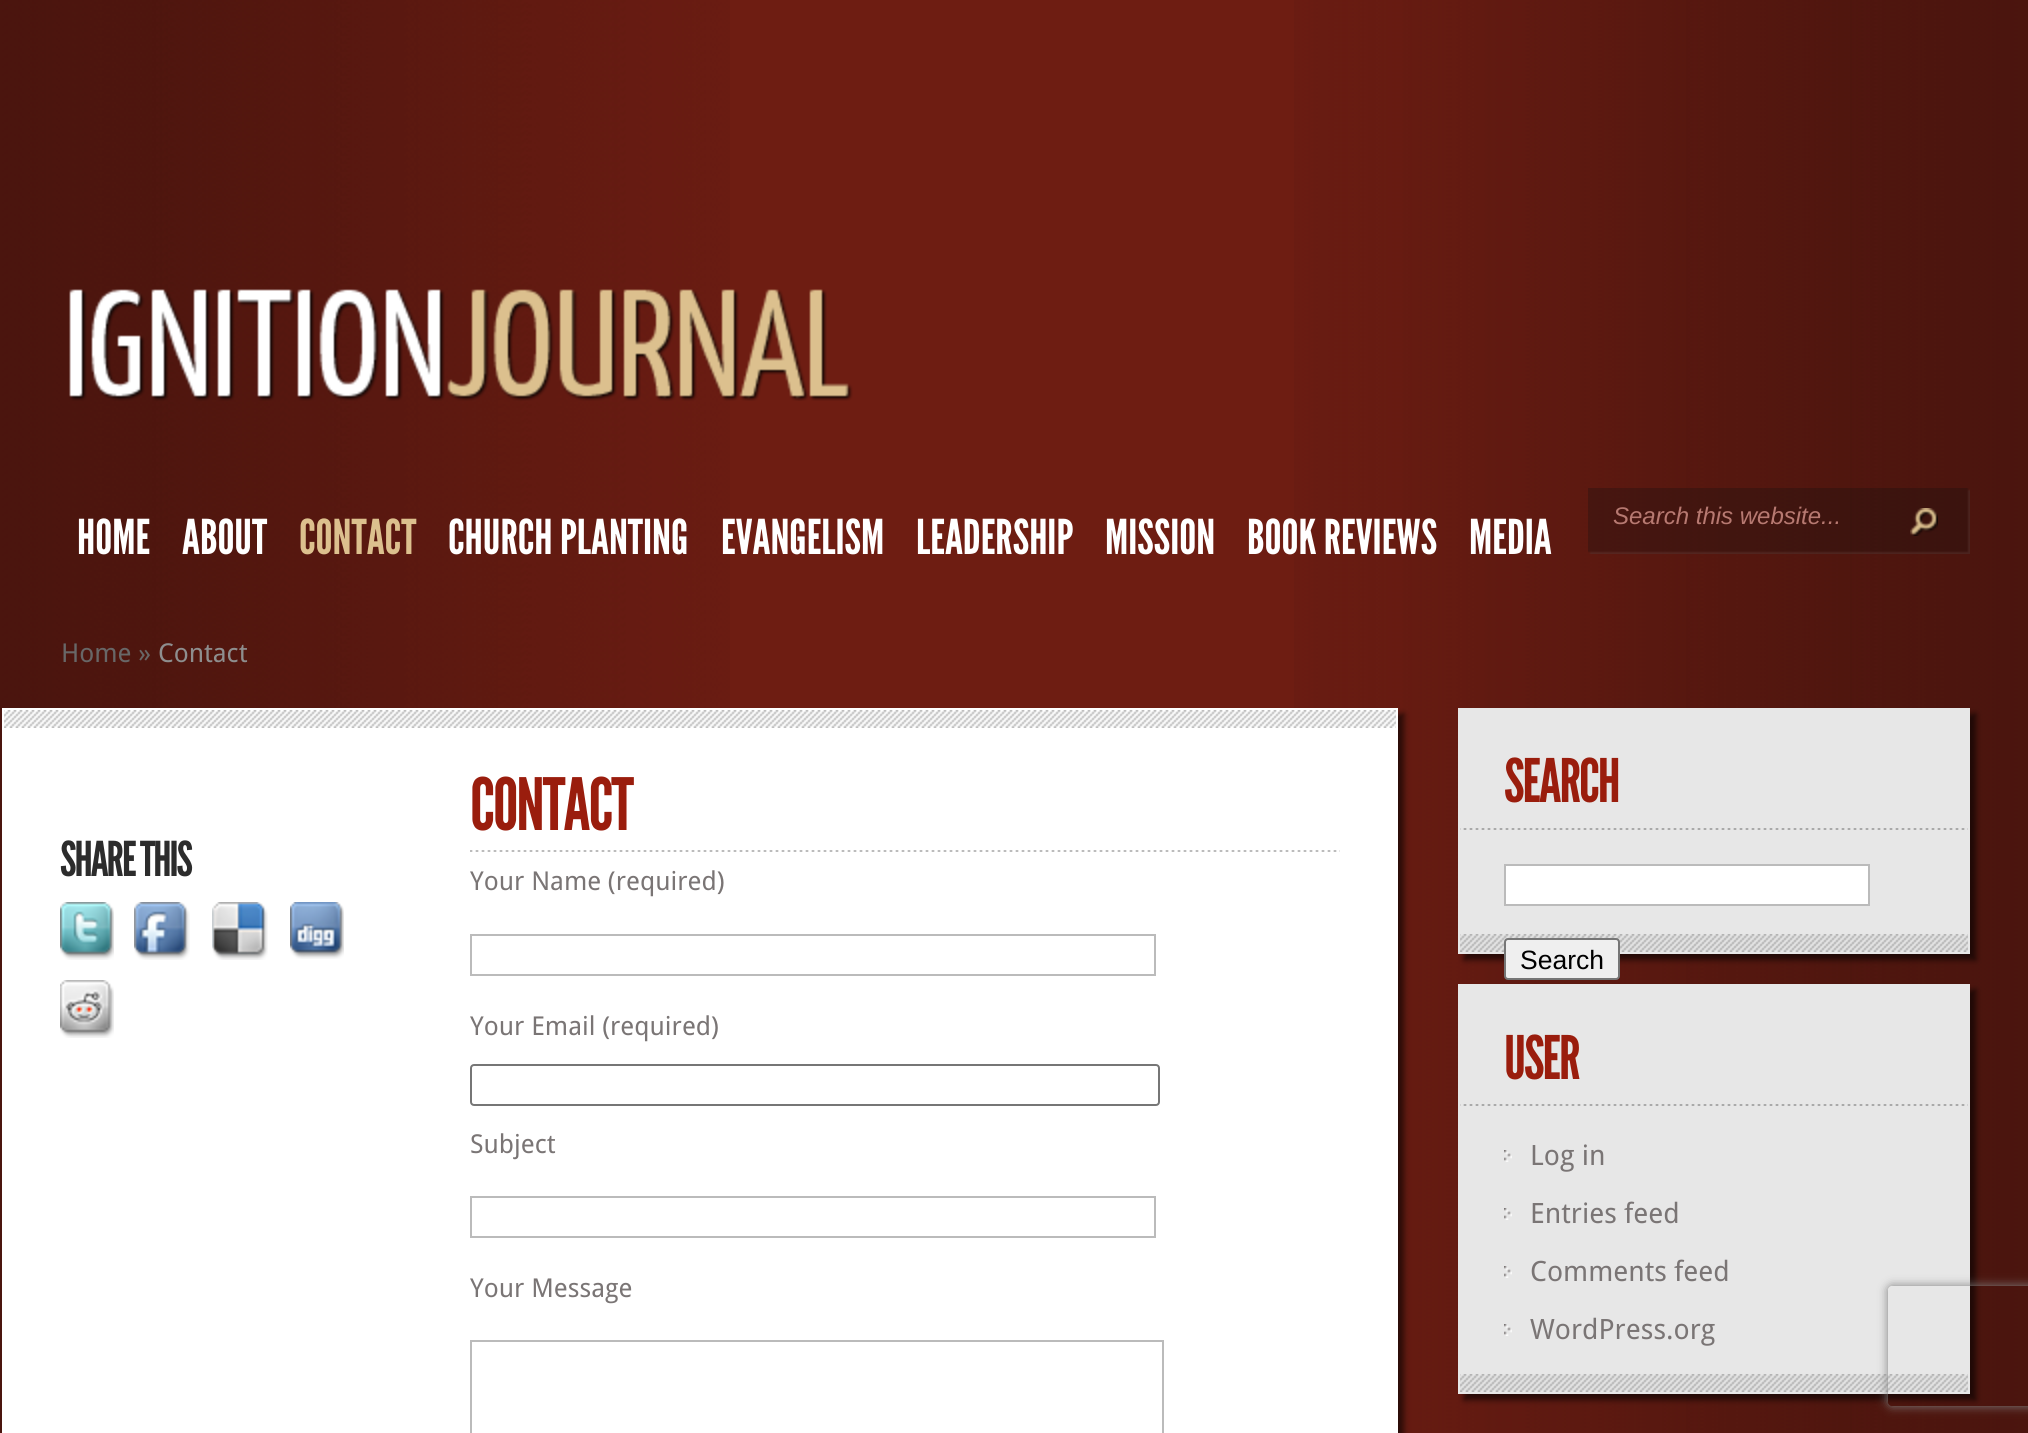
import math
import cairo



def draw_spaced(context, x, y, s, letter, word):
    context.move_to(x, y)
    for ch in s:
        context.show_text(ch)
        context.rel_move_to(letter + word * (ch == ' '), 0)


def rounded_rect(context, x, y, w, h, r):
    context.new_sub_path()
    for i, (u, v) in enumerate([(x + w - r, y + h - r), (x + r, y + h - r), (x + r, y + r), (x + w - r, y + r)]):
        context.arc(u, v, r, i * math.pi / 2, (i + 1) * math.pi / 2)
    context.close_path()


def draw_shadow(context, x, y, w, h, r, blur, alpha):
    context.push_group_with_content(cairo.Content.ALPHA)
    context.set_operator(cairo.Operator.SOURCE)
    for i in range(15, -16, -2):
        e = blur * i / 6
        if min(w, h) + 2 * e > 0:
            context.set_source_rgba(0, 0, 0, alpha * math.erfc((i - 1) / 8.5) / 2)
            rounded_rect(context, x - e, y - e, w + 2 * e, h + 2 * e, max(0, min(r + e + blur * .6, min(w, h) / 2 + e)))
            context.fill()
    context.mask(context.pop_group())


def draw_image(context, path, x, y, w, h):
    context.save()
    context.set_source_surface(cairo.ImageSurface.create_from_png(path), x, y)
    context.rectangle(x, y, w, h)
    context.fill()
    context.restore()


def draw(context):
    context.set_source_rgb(110 / 255, 29 / 255, 18 / 255)
    context.paint()
    draw_image(context, "images/1.png", 0, 0, 730, 1433)
    draw_image(context, "images/2.png", 1294, 0, 734, 1433)
    draw_image(context, "images/3.png", 69, 289, 784, 112)
    draw_image(context, "images/4.png", 1588, 488, 382, 66)
    draw_image(context, "images/5.png", 1910, 508, 28, 28)
    context.set_source_rgb(0, 0, 0)
    draw_shadow(context, 8, 714, 1396, 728, 0, 3, 0.6)
    context.set_source_rgb(1, 1, 1)
    context.rectangle(4, 710, 1392, 723)
    context.fill()
    draw_image(context, "images/6.png", 4, 710, 1392, 18)
    context.rectangle(3, 709, 1394, 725)
    context.stroke()
    draw_image(context, "images/7.png", 60, 902, 54, 58)
    draw_image(context, "images/8.png", 134, 902, 56, 58)
    draw_image(context, "images/9.png", 212, 902, 56, 58)
    draw_image(context, "images/10.png", 290, 902, 54, 57)
    draw_image(context, "images/11.png", 60, 980, 54, 58)
    draw_image(context, "images/12.png", 470, 850, 870, 2)
    context.rectangle(471, 935, 684, 40)
    context.set_source_rgb(187 / 255, 187 / 255, 187 / 255)
    context.stroke()
    rounded_rect(context, 471, 1065, 688, 40, 3)
    context.set_source_rgb(118 / 255, 118 / 255, 118 / 255)
    context.stroke()
    context.rectangle(471, 1197, 684, 40)
    context.set_source_rgb(187 / 255, 187 / 255, 187 / 255)
    context.stroke()
    context.rectangle(471, 1341, 692, 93)
    context.stroke()
    context.set_source_rgb(0, 0, 0)
    draw_shadow(context, 1464, 714, 512, 246, 0, 3, 0.6)
    context.set_source_rgb(231 / 255, 231 / 255, 231 / 255)
    context.rectangle(1460, 710, 508, 242)
    context.fill()
    draw_image(context, "images/13.png", 1460, 934, 508, 18)
    context.rectangle(1459, 709, 510, 244)
    context.stroke()
    draw_image(context, "images/14.png", 1460, 828, 508, 2)
    context.set_source_rgb(1, 1, 1)
    context.rectangle(1505, 865, 364, 40)
    context.fill_preserve()
    context.set_source_rgb(187 / 255, 187 / 255, 187 / 255)
    context.stroke()
    context.set_source_rgb(239 / 255, 239 / 255, 239 / 255)
    rounded_rect(context, 1505, 939, 114, 40, 3)
    context.fill_preserve()
    context.set_source_rgb(118 / 255, 118 / 255, 118 / 255)
    context.stroke()
    context.set_source_rgb(0, 0, 0)
    draw_shadow(context, 1464, 990, 512, 410, 0, 3, 0.6)
    context.set_source_rgb(231 / 255, 231 / 255, 231 / 255)
    context.rectangle(1460, 986, 508, 406)
    context.fill()
    draw_image(context, "images/13.png", 1460, 1374, 508, 18)
    context.rectangle(1459, 985, 510, 408)
    context.stroke()
    draw_image(context, "images/14.png", 1460, 1104, 508, 2)
    draw_image(context, "images/15.png", 1504, 1150, 8, 12)
    draw_image(context, "images/15.png", 1504, 1208, 8, 12)
    draw_image(context, "images/15.png", 1504, 1266, 8, 12)
    draw_image(context, "images/15.png", 1504, 1324, 8, 12)
    context.save()
    context.set_fill_rule(cairo.FillRule.EVEN_ODD)
    context.new_path()
    context.move_to(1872, 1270)
    context.line_to(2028, 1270)
    context.line_to(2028, 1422)
    context.line_to(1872, 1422)
    context.close_path()
    context.move_to(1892, 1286)
    context.line_to(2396, 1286)
    context.curve_to(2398, 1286, 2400, 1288, 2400, 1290)
    context.line_to(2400, 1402)
    context.curve_to(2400, 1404, 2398, 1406, 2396, 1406)
    context.line_to(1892, 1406)
    context.curve_to(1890, 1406, 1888, 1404, 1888, 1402)
    context.line_to(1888, 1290)
    context.curve_to(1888, 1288, 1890, 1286, 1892, 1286)
    context.close_path()
    context.clip()
    context.set_source_rgb(128 / 255, 128 / 255, 128 / 255)
    draw_shadow(context, 1888, 1286, 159, 120, 4, 5, 1)
    context.restore()
    context.select_font_face("Liberation Sans", cairo.FontSlant.ITALIC)
    context.set_font_size(24)
    context.set_source_rgb(183 / 255, 121 / 255, 113 / 255)
    context.move_to(1613, 524)
    context.show_text("Search this website...")
    context.select_font_face("League Gothic")
    context.set_font_size(48)
    context.set_source_rgb(1, 1, 1)
    context.move_to(77, 554)
    context.show_text("HOME")
    context.move_to(182, 554)
    context.show_text("ABOUT")
    context.set_source_rgb(220 / 255, 192 / 255, 142 / 255)
    context.move_to(299, 554)
    context.show_text("CONTACT")
    context.set_source_rgb(1, 1, 1)
    context.move_to(448, 554)
    context.show_text("CHURCH PLANTING")
    context.move_to(721, 554)
    context.show_text("EVANGELISM")
    context.move_to(916, 554)
    context.show_text("LEADERSHIP")
    context.move_to(1105, 554)
    context.show_text("MISSION")
    context.move_to(1247, 554)
    context.show_text("BOOK REVIEWS")
    context.move_to(1469, 554)
    context.show_text("MEDIA")
    context.select_font_face("Droid Sans")
    context.set_font_size(26)
    context.set_source_rgb(104 / 255, 103 / 255, 103 / 255)
    context.move_to(61, 662)
    context.show_text("Home »")
    context.set_source_rgb(142 / 255, 142 / 255, 142 / 255)
    context.move_to(158, 662)
    context.show_text("Contact")
    context.select_font_face("League Gothic")
    context.set_font_size(48)
    context.set_source_rgb(44 / 255, 44 / 255, 44 / 255)
    draw_spaced(context, 60, 876, "SHARE THIS", -2, 0)
    context.set_font_size(72)
    context.set_source_rgb(154 / 255, 29 / 255, 13 / 255)
    draw_spaced(context, 470, 830, "CONTACT", -2, 0)
    context.select_font_face("Droid Sans")
    context.set_font_size(26)
    context.set_source_rgb(122 / 255, 117 / 255, 117 / 255)
    context.move_to(470, 890)
    context.show_text("Your Name (required)")
    context.move_to(470, 1035)
    context.show_text("Your Email (required)")
    context.move_to(470, 1153)
    context.show_text("Subject")
    context.move_to(470, 1297)
    context.show_text("Your Message")
    context.select_font_face("League Gothic")
    context.set_font_size(60)
    context.set_source_rgb(154 / 255, 29 / 255, 13 / 255)
    draw_spaced(context, 1504, 802, "SEARCH", -2, 0)
    context.select_font_face("Liberation Sans")
    context.set_font_size(26.5)
    context.set_source_rgb(0, 0, 0)
    context.move_to(1520, 969)
    context.show_text("Search")
    context.select_font_face("League Gothic")
    context.set_font_size(60)
    context.set_source_rgb(154 / 255, 29 / 255, 13 / 255)
    draw_spaced(context, 1504, 1079, "USER", -2, 0)
    context.select_font_face("Droid Sans")
    context.set_font_size(28)
    context.set_source_rgb(122 / 255, 117 / 255, 117 / 255)
    context.move_to(1530, 1165)
    context.show_text("Log in")
    context.move_to(1530, 1223)
    context.show_text("Entries feed")
    context.move_to(1530, 1281)
    context.show_text("Comments feed")
    context.move_to(1530, 1339)
    context.show_text("WordPress.org")


surface = cairo.ImageSurface(cairo.Format.RGB24, 2028, 1433)
context = cairo.Context(surface)
options = cairo.FontOptions()
options.set_hint_metrics(cairo.HintMetrics.OFF)
options.set_hint_style(cairo.HintStyle.NONE)
context.set_font_options(options)
context.set_miter_limit(4)
draw(context)
surface.write_to_png("out.png")
